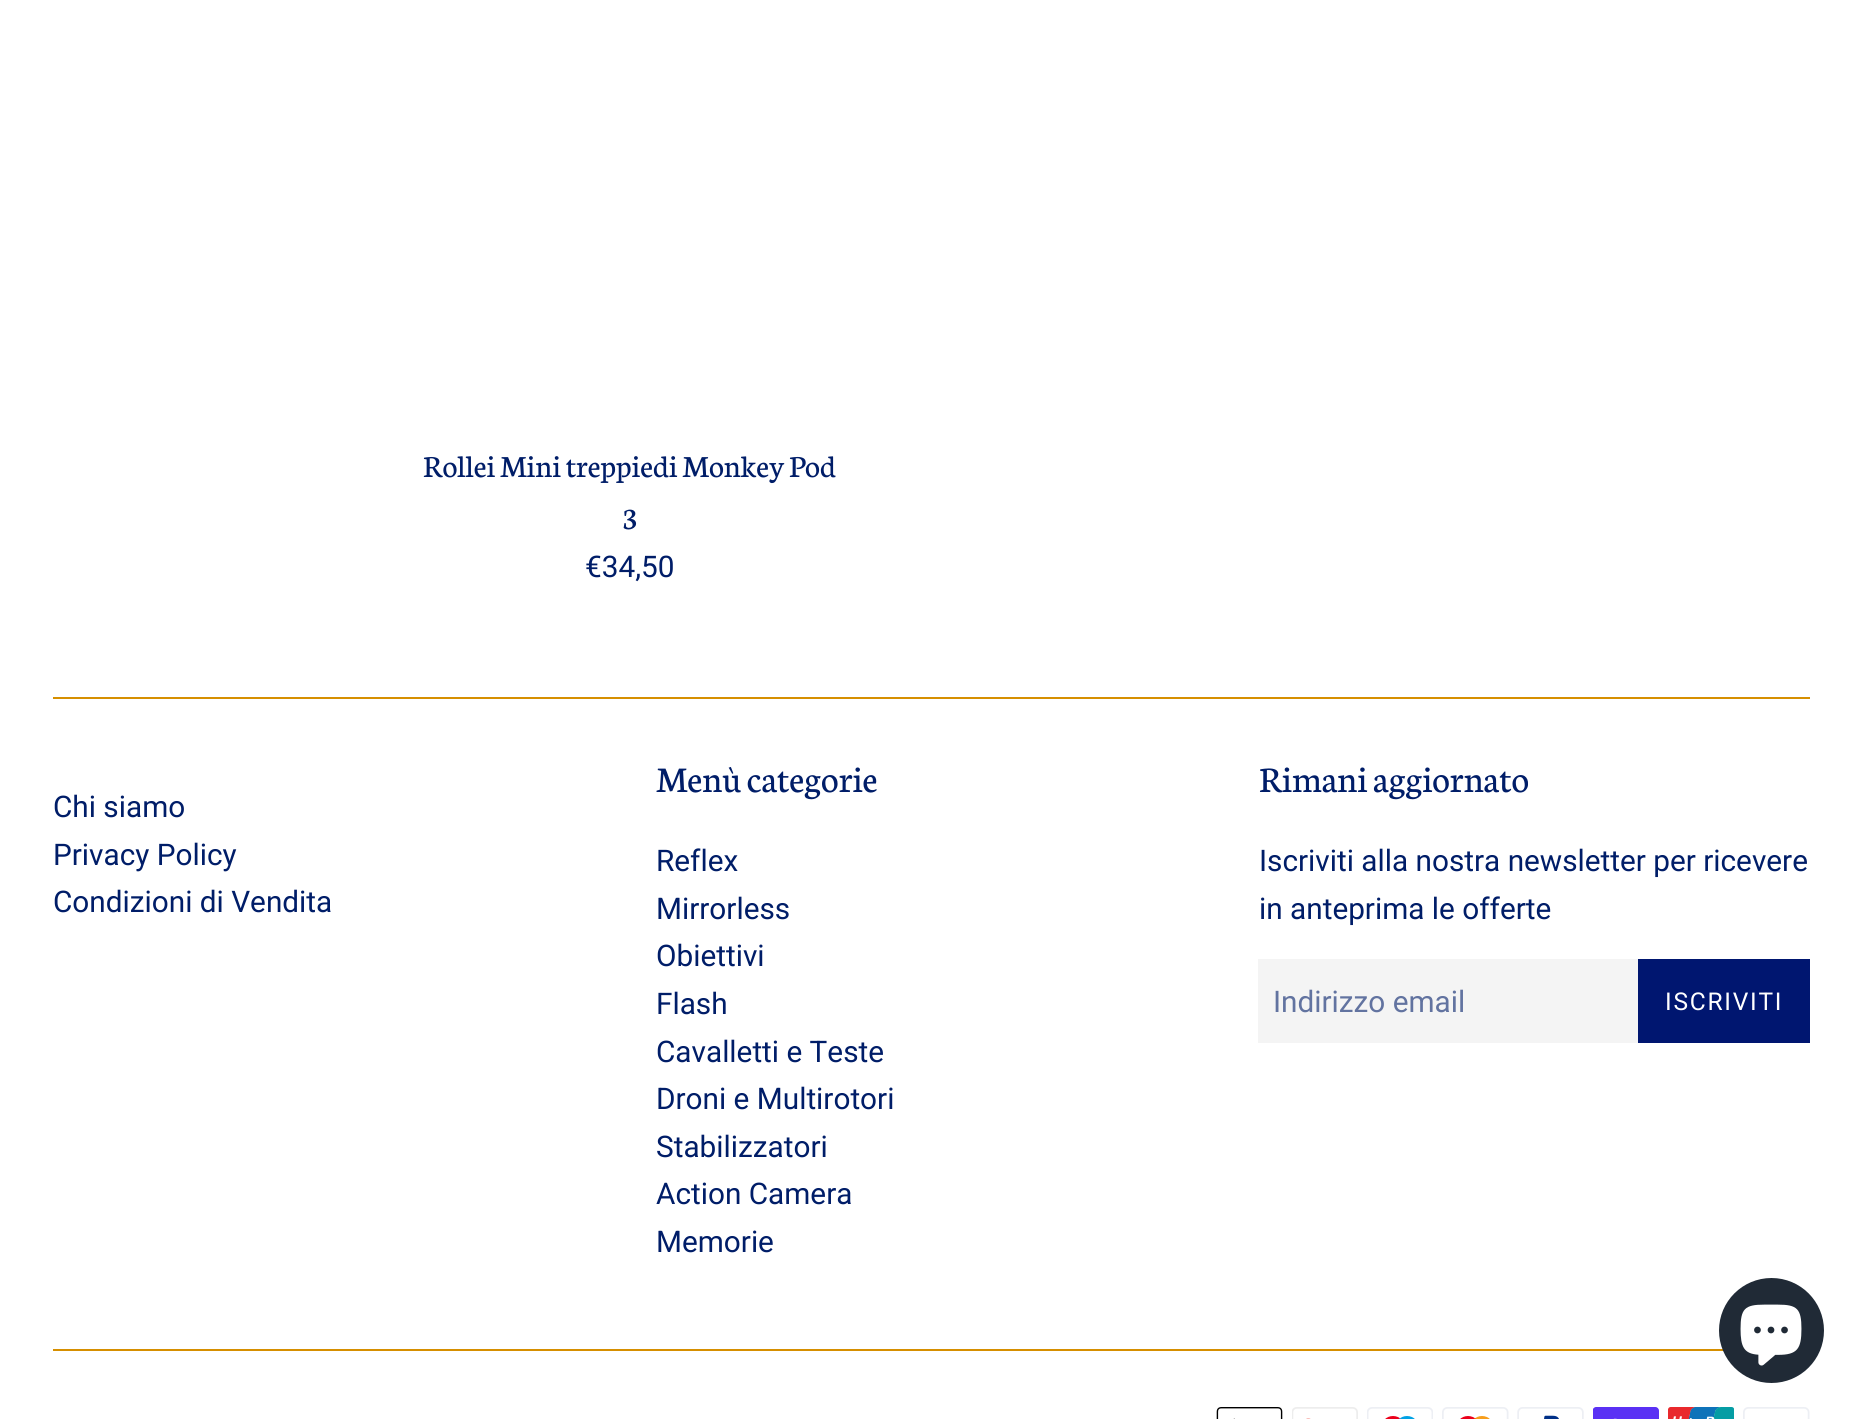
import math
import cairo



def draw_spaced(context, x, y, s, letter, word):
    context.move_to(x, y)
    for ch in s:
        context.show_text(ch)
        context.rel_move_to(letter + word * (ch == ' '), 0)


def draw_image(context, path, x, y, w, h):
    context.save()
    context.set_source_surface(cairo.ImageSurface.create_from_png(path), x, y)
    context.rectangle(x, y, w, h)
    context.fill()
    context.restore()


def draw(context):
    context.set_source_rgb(1, 1, 1)
    context.paint()
    context.set_source_rgb(214 / 255, 143 / 255, 0)
    context.rectangle(53, 697, 1757, 2)
    context.fill()
    context.set_source_rgb(244 / 255, 244 / 255, 244 / 255)
    context.rectangle(1258, 959, 380, 84)
    context.fill()
    context.set_source_rgb(0, 22 / 255, 112 / 255)
    context.rectangle(1638, 959, 172, 84)
    context.fill()
    context.set_source_rgb(214 / 255, 143 / 255, 0)
    context.rectangle(53, 1349, 1671, 2)
    context.fill()
    draw_image(context, "images/1.png", 1216, 1407, 67, 12)
    draw_image(context, "images/2.png", 1292, 1407, 66, 12)
    draw_image(context, "images/3.png", 1367, 1407, 66, 12)
    draw_image(context, "images/4.png", 1442, 1407, 67, 12)
    draw_image(context, "images/5.png", 1517, 1407, 67, 12)
    draw_image(context, "images/6.png", 1593, 1407, 66, 12)
    draw_image(context, "images/7.png", 1668, 1407, 66, 12)
    draw_image(context, "images/8.png", 1743, 1407, 67, 12)
    context.set_source_rgb(32 / 255, 42 / 255, 54 / 255)
    context.arc(1771.5, 1330.5, 52.5, 0, 2 * math.pi)
    context.fill()
    draw_image(context, "images/9.png", 1740, 1304, 62, 62)
    context.select_font_face("Neuton")
    context.set_font_size(32.75)
    context.set_source_rgb(0, 29 / 255, 104 / 255)
    context.move_to(423, 477)
    context.show_text("Rollei Mini treppiedi Monkey Pod")
    context.move_to(622, 529)
    context.show_text("3")
    context.select_font_face("Roboto")
    context.set_font_size(29.75)
    context.move_to(585, 577)
    context.show_text("€34,50")
    context.move_to(53, 817)
    context.show_text("Chi siamo")
    context.move_to(53, 865)
    context.show_text("Privacy Policy")
    context.move_to(53, 912)
    context.show_text("Condizioni di Vendita")
    context.select_font_face("Neuton")
    context.set_font_size(38.5)
    context.move_to(656, 792)
    context.show_text("Menù categorie")
    context.select_font_face("Roboto")
    context.set_font_size(29.75)
    context.move_to(656, 871)
    context.show_text("Reflex")
    context.move_to(656, 919)
    context.show_text("Mirrorless")
    context.move_to(656, 966)
    context.show_text("Obiettivi")
    context.move_to(656, 1014)
    context.show_text("Flash")
    context.move_to(656, 1062)
    context.show_text("Cavalletti e Teste")
    context.move_to(656, 1109)
    context.show_text("Droni e Multirotori")
    context.move_to(656, 1157)
    context.show_text("Stabilizzatori")
    context.move_to(656, 1204)
    context.show_text("Action Camera")
    context.move_to(656, 1252)
    context.show_text("Memorie")
    context.select_font_face("Neuton")
    context.set_font_size(38.5)
    context.move_to(1259, 792)
    context.show_text("Rimani aggiornato")
    context.select_font_face("Roboto")
    context.set_font_size(29.75)
    context.move_to(1259, 871)
    context.show_text("Iscriviti alla nostra newsletter per ricevere")
    context.move_to(1259, 919)
    context.show_text("in anteprima le offerte")
    context.set_source_rgb(98 / 255, 115 / 255, 160 / 255)
    context.move_to(1273, 1012)
    context.show_text("Indirizzo email")
    context.set_font_size(24.5)
    context.set_source_rgb(1, 1, 1)
    draw_spaced(context, 1665, 1010, "ISCRIVITI", 1.75, 0)


surface = cairo.ImageSurface(cairo.Format.RGB24, 1861, 1419)
context = cairo.Context(surface)
options = cairo.FontOptions()
options.set_hint_metrics(cairo.HintMetrics.OFF)
options.set_hint_style(cairo.HintStyle.NONE)
context.set_font_options(options)
context.set_miter_limit(4)
draw(context)
surface.write_to_png("out.png")
